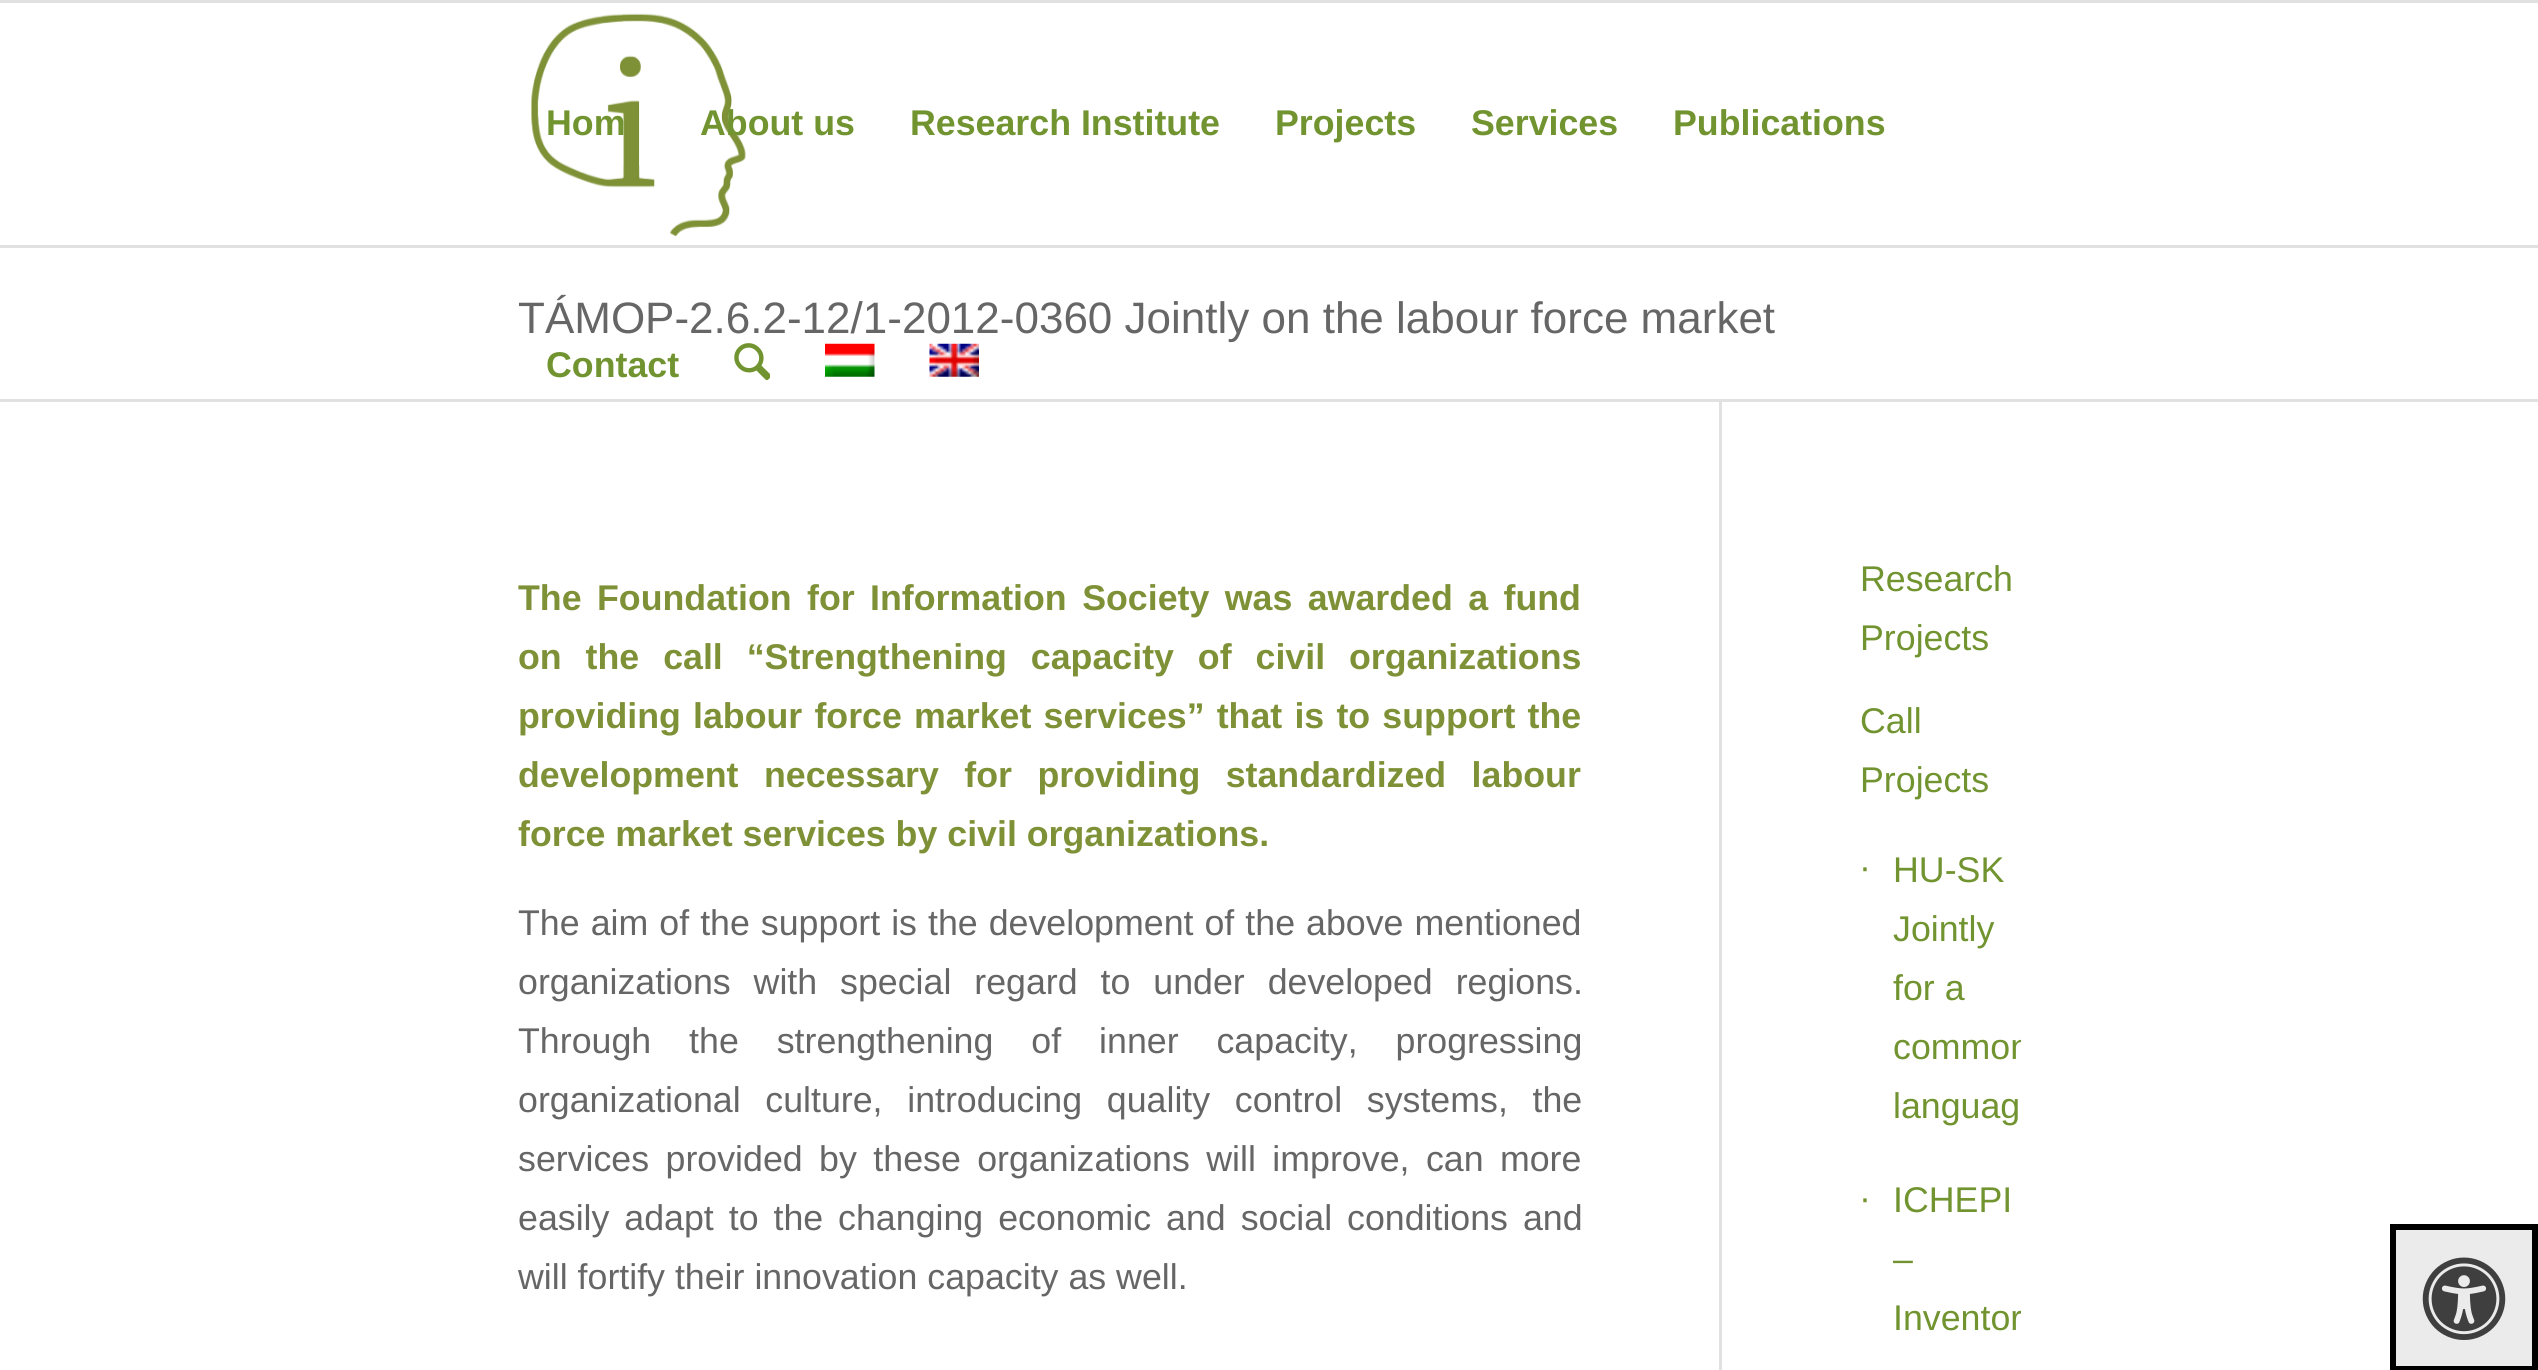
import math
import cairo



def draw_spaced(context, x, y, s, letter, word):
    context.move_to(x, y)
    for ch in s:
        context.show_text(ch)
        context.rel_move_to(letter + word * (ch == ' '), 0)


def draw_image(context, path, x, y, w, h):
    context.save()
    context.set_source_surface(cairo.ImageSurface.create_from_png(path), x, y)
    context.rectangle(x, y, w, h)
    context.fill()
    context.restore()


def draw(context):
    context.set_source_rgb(1, 1, 1)
    context.paint()
    context.set_source_rgb(225 / 255, 225 / 255, 225 / 255)
    context.rectangle(0, 0, 2538, 3)
    context.fill()
    context.rectangle(0, 245, 2538, 3)
    context.fill()
    draw_image(context, "images/1.png", 530, 13, 216, 224)
    draw_image(context, "images/2.png", 734, 343, 36, 38)
    draw_image(context, "images/3.png", 825, 343, 50, 34)
    draw_image(context, "images/4.png", 929, 343, 50, 34)
    context.rectangle(0, 399, 2538, 3)
    context.fill()
    context.rectangle(1719, 402, 3, 968)
    context.fill()
    context.set_source_rgb(235 / 255, 235 / 255, 235 / 255)
    context.rectangle(2393, 1227, 142, 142)
    context.fill_preserve()
    context.set_source_rgb(0, 0, 0)
    context.set_line_width(6)
    context.stroke()
    draw_image(context, "images/5.png", 2422, 1257, 84, 83)
    context.select_font_face("Liberation Sans", cairo.FontSlant.NORMAL, cairo.FontWeight.BOLD)
    context.set_font_size(35.75)
    context.set_source_rgb(113 / 255, 148 / 255, 48 / 255)
    context.move_to(546, 135)
    context.show_text("Hom")
    context.move_to(700, 135)
    context.show_text("About us")
    context.move_to(910, 135)
    context.show_text("Research Institute")
    context.move_to(1275, 135)
    context.show_text("Projects")
    context.move_to(1471, 135)
    context.show_text("Services")
    context.move_to(1673, 135)
    context.show_text("Publications")
    context.move_to(546, 377)
    context.show_text("Contact")
    context.select_font_face("Liberation Sans")
    context.set_font_size(44)
    context.set_source_rgb(102 / 255, 102 / 255, 102 / 255)
    context.move_to(518, 333)
    context.show_text("TÁMOP-2.6.2-12/1-2012-0360 Jointly on the labour force market")
    context.select_font_face("Liberation Sans", cairo.FontSlant.NORMAL, cairo.FontWeight.BOLD)
    context.set_font_size(35.75)
    context.set_source_rgb(126 / 255, 145 / 255, 55 / 255)
    draw_spaced(context, 518, 610, "The Foundation for Information Society was awarded a fund", 0, 5.5)
    draw_spaced(context, 518, 669, "on the call “Strengthening capacity of civil organizations", 0, 14)
    draw_spaced(context, 518, 728, "providing labour force market services” that is to support the", 0, 2.25)
    draw_spaced(context, 518, 787, "development necessary for providing standardized labour", 0, 15.5)
    context.move_to(518, 846)
    context.show_text("force market services by civil organizations.")
    context.select_font_face("Liberation Sans")
    context.set_source_rgb(102 / 255, 102 / 255, 102 / 255)
    draw_spaced(context, 518, 935, "The aim of the support is the development of the above mentioned", 0, 1.1)
    draw_spaced(context, 518, 994, "organizations with special regard to under developed regions.", 0, 13)
    draw_spaced(context, 518, 1053, "Through the strengthening of inner capacity, progressing", 0, 28)
    draw_spaced(context, 518, 1112, "organizational culture, introducing quality control systems, the", 0, 14.75)
    draw_spaced(context, 518, 1171, "services provided by these organizations will improve, can more", 0, 6.5)
    draw_spaced(context, 518, 1230, "easily adapt to the changing economic and social conditions and", 0, 5)
    context.move_to(518, 1289)
    context.show_text("will fortify their innovation capacity as well.")
    context.set_source_rgb(113 / 255, 148 / 255, 48 / 255)
    context.move_to(1860, 591)
    context.show_text("Research")
    context.move_to(1860, 650)
    context.show_text("Projects")
    context.move_to(1860, 733)
    context.show_text("Call")
    context.move_to(1860, 792)
    context.show_text("Projects")
    context.move_to(1860, 879)
    context.show_text("∙")
    context.move_to(1893, 882)
    context.show_text("HU-SK")
    context.move_to(1893, 941)
    context.show_text("Jointly")
    context.move_to(1893, 1000)
    context.show_text("for a")
    context.save()
    context.rectangle(1722, 402, 299, 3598)
    context.clip()
    context.move_to(1893, 1059)
    context.show_text("common")
    context.restore()
    context.move_to(1893, 1118)
    context.show_text("languag")
    context.move_to(1860, 1210)
    context.show_text("∙")
    context.move_to(1893, 1212)
    context.show_text("ICHEPI")
    context.move_to(1893, 1271)
    context.show_text("–")
    context.save()
    context.rectangle(1722, 402, 299, 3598)
    context.clip()
    context.move_to(1893, 1330)
    context.show_text("Inventor")
    context.restore()


surface = cairo.ImageSurface(cairo.Format.RGB24, 2538, 1370)
context = cairo.Context(surface)
options = cairo.FontOptions()
options.set_hint_metrics(cairo.HintMetrics.OFF)
options.set_hint_style(cairo.HintStyle.NONE)
context.set_font_options(options)
context.set_miter_limit(4)
draw(context)
surface.write_to_png("out.png")
